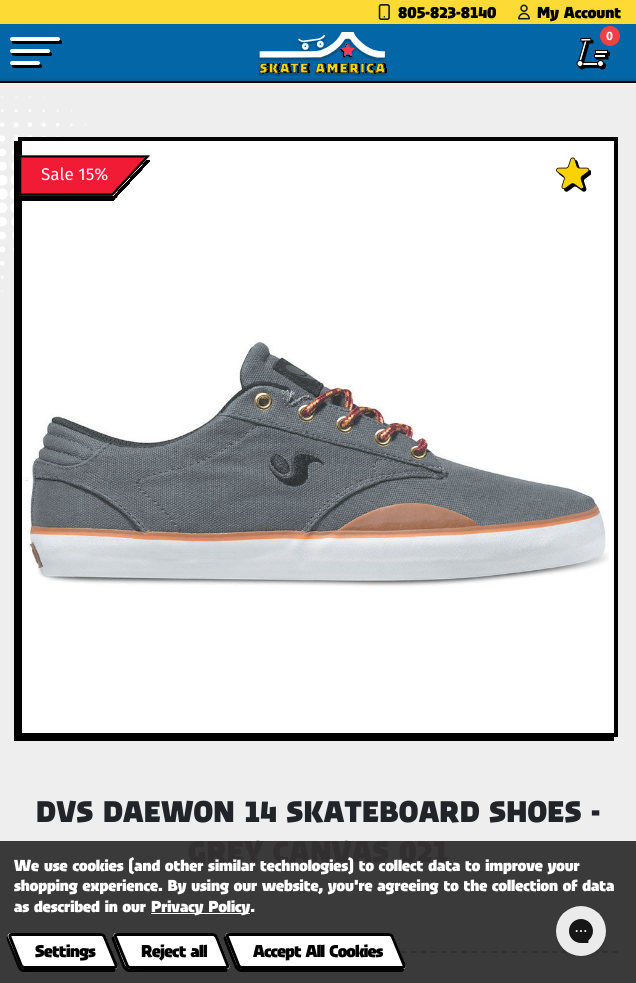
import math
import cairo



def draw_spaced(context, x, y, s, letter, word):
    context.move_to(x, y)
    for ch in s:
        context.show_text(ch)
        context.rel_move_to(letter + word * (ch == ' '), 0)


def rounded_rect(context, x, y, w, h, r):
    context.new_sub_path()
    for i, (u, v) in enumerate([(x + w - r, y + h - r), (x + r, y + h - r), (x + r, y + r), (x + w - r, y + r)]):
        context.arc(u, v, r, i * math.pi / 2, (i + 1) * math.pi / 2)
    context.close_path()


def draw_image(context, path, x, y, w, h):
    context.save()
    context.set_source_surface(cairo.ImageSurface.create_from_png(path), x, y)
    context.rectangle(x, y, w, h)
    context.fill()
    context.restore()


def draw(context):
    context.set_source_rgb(238 / 255, 238 / 255, 238 / 255)
    context.paint()
    context.set_source_rgb(59 / 255, 58 / 255, 58 / 255)
    context.rectangle(0, 841, 636, 142)
    context.fill()
    context.set_source_rgb(253 / 255, 219 / 255, 52 / 255)
    context.rectangle(0, 0, 636, 24)
    context.fill()
    draw_image(context, "images/1.png", 378, 4, 12, 16)
    draw_image(context, "images/2.png", 518, 4, 12, 16)
    context.set_source_rgb(8 / 255, 94 / 255, 150 / 255)
    context.rectangle(0, 78, 636, 3)
    context.fill()
    context.set_source_rgb(0, 0, 0)
    context.rectangle(0, 81, 636, 2)
    context.fill()
    context.set_source_rgb(3 / 255, 102 / 255, 166 / 255)
    context.rectangle(0, 24, 636, 54)
    context.fill()
    context.set_source_rgb(0, 0, 0)
    context.new_path()
    context.move_to(12, 41)
    context.curve_to(12, 42, 12, 44, 14, 44)
    context.line_to(61, 44)
    context.curve_to(63, 43, 62, 40, 60, 40)
    context.line_to(58, 41)
    context.close_path()
    context.fill()
    context.set_source_rgb(1, 1, 1)
    rounded_rect(context, 10, 37, 50, 4, 2)
    context.fill()
    context.set_source_rgb(0, 0, 0)
    context.new_path()
    context.move_to(12, 53)
    context.curve_to(10, 56, 16, 56, 20, 56)
    context.line_to(51, 56)
    context.curve_to(53, 55, 52, 52, 50, 52)
    context.line_to(49, 53)
    context.close_path()
    context.fill()
    context.set_source_rgb(1, 1, 1)
    rounded_rect(context, 10, 49, 40, 4, 2)
    context.fill()
    context.set_source_rgb(0, 0, 0)
    context.new_path()
    context.move_to(12.5, 65)
    context.curve_to(10, 69, 17.5, 68, 18.5, 68)
    context.line_to(40, 68)
    context.curve_to(43, 68, 42.5, 64, 39.5, 64)
    context.line_to(38.5, 65)
    context.close_path()
    context.fill()
    context.set_source_rgb(1, 1, 1)
    rounded_rect(context, 10, 61, 30, 4, 2)
    context.fill()
    draw_image(context, "images/3.png", 258, 32, 129, 45)
    draw_image(context, "images/4.png", 576, 37, 34, 33)
    context.set_source_rgb(239 / 255, 64 / 255, 68 / 255)
    context.arc(610, 36, 10, 0, 2 * math.pi)
    context.fill()
    draw_image(context, "images/5.png", 0, 96, 100, 196)
    context.set_source_rgb(0, 0, 0)
    context.new_path()
    context.move_to(14, 141)
    context.line_to(14, 741)
    context.line_to(614, 741)
    context.line_to(614, 737)
    context.line_to(18, 737)
    context.line_to(18, 141)
    context.close_path()
    context.fill()
    context.set_source_rgb(1, 1, 1)
    context.rectangle(20, 139, 596, 596)
    context.fill_preserve()
    context.set_source_rgb(0, 0, 0)
    context.set_line_width(4)
    context.stroke()
    draw_image(context, "images/6.png", 22, 340, 587, 247)
    draw_image(context, "images/7.png", 19, 155, 131, 46)
    draw_image(context, "images/8.png", 556, 157, 35, 35)
    context.new_path()
    context.move_to(18, 952)
    context.line_to(618, 952)
    context.set_source_rgb(50 / 255, 48 / 255, 48 / 255)
    context.set_line_width(2)
    context.set_dash([6, 4.07])
    context.stroke()
    context.set_source_rgb(1, 1, 1)
    context.rectangle(151, 913, 99, 1)
    context.fill()
    context.set_source_rgb(0, 0, 0)
    context.new_path()
    context.move_to(8, 936)
    context.curve_to(7, 937, 6, 938, 7, 940)
    context.line_to(18, 968)
    context.curve_to(19, 970, 21, 972, 23, 972)
    context.line_to(113, 972)
    context.curve_to(115, 972, 116, 971, 115, 969)
    context.line_to(25, 969)
    context.curve_to(19, 969, 17, 960, 16, 956)
    context.close_path()
    context.fill()
    context.set_source_rgb(1, 1, 1)
    context.new_path()
    context.move_to(11, 933)
    context.line_to(100, 933)
    context.curve_to(103, 933, 105, 935, 106, 937)
    context.line_to(117, 965)
    context.curve_to(118, 967, 117, 969, 115, 969)
    context.line_to(25, 969)
    context.curve_to(23, 969, 21, 967, 20, 965)
    context.line_to(8, 937)
    context.curve_to(7, 935, 9, 933, 11, 933)
    context.close_path()
    context.fill()
    context.new_path()
    context.move_to(11.5, 934.5)
    context.line_to(101, 934.5)
    context.curve_to(102.5, 934.5, 104, 935.5, 104.5, 937)
    context.line_to(116, 965)
    context.curve_to(116.5, 966.5, 115.5, 967.5, 114.5, 967.5)
    context.line_to(24.5, 967.5)
    context.curve_to(23.5, 967.5, 21.5, 966.5, 21, 965)
    context.line_to(10, 937)
    context.curve_to(9.5, 935.5, 10, 934.5, 11.5, 934.5)
    context.close_path()
    context.set_source_rgb(0, 0, 0)
    context.set_line_width(3)
    context.set_dash([])
    context.stroke()
    context.new_path()
    context.move_to(114, 936)
    context.curve_to(112, 937, 111, 938, 112, 940)
    context.line_to(123, 968)
    context.curve_to(124, 970, 127, 972, 129, 972)
    context.line_to(225, 972)
    context.curve_to(227, 972, 228, 971, 227, 969)
    context.line_to(147, 969)
    context.curve_to(126, 969, 128, 972, 121, 956)
    context.close_path()
    context.fill()
    context.set_source_rgb(1, 1, 1)
    context.new_path()
    context.move_to(116, 933)
    context.line_to(212, 933)
    context.curve_to(214, 933, 217, 935, 218, 937)
    context.line_to(229, 965)
    context.curve_to(230, 967, 229, 969, 227, 969)
    context.line_to(131, 969)
    context.curve_to(129, 969, 126, 967, 125, 965)
    context.line_to(114, 937)
    context.curve_to(113, 935, 114, 933, 116, 933)
    context.close_path()
    context.fill()
    context.new_path()
    context.move_to(117, 934.5)
    context.line_to(213, 934.5)
    context.curve_to(214, 934.5, 215.5, 935.5, 216.5, 937)
    context.line_to(227.5, 965)
    context.curve_to(228, 966.5, 227.5, 967.5, 226, 967.5)
    context.line_to(130.5, 967.5)
    context.curve_to(129, 967.5, 127.5, 966.5, 127, 965)
    context.line_to(115.5, 937)
    context.curve_to(115, 935.5, 115.5, 934.5, 117, 934.5)
    context.close_path()
    context.set_source_rgb(0, 0, 0)
    context.stroke()
    context.new_path()
    context.move_to(226, 936)
    context.curve_to(224, 936, 223, 938, 224, 940)
    context.line_to(235, 968)
    context.curve_to(236, 970, 239, 972, 241, 972)
    context.line_to(401, 972)
    context.curve_to(403, 972, 404, 971, 404, 969)
    context.line_to(243, 969)
    context.curve_to(237, 969, 235, 960, 233, 956)
    context.close_path()
    context.fill()
    context.set_source_rgb(1, 1, 1)
    context.new_path()
    context.move_to(228, 933)
    context.line_to(388, 933)
    context.curve_to(391, 933, 393, 935, 394, 937)
    context.line_to(405, 965)
    context.curve_to(406, 967, 405, 969, 403, 969)
    context.line_to(243, 969)
    context.curve_to(241, 969, 238, 967, 237, 965)
    context.line_to(226, 937)
    context.curve_to(225, 935, 226, 933, 228, 933)
    context.close_path()
    context.fill()
    context.new_path()
    context.move_to(229, 934.5)
    context.line_to(389, 934.5)
    context.curve_to(390.5, 934.5, 392, 935.5, 392.5, 937)
    context.line_to(404, 965)
    context.curve_to(404.5, 966.5, 403.5, 967.5, 402.5, 967.5)
    context.line_to(242, 967.5)
    context.curve_to(240.5, 967.5, 239, 966.5, 238.5, 965)
    context.line_to(227.5, 937)
    context.curve_to(226.5, 935.5, 227.5, 934.5, 229, 934.5)
    context.close_path()
    context.set_source_rgb(0, 0, 0)
    context.stroke()
    draw_image(context, "images/9.png", 556, 906, 50, 51)
    context.select_font_face("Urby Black")
    context.set_font_size(16)
    context.move_to(398, 18)
    context.show_text("805-823-8140")
    context.move_to(537, 18)
    context.show_text("My Account")
    context.select_font_face("Fira Sans", cairo.FontSlant.NORMAL, cairo.FontWeight.BOLD)
    context.set_font_size(12)
    context.set_source_rgb(1, 1, 1)
    context.move_to(606, 40)
    context.show_text("0")
    context.select_font_face("Fira Sans")
    context.set_font_size(17)
    context.move_to(41, 180)
    context.show_text("Sale 15%")
    context.select_font_face("Urby Black")
    context.set_font_size(30)
    context.set_source_rgb(33 / 255, 37 / 255, 41 / 255)
    draw_spaced(context, 36, 822, "DVS DAEWON 14 SKATEBOARD SHOES -", 0.25, 0)
    context.set_source_rgb(49 / 255, 47 / 255, 48 / 255)
    draw_spaced(context, 188, 862, "GREY CANVAS 021", 0.25, 0)
    context.set_font_size(16)
    context.set_source_rgb(1, 1, 1)
    draw_spaced(context, 14, 871, "We use cookies (and other similar technologies) to collect data to improve your", -0.05, 0)
    draw_spaced(context, 14, 891, "shopping experience. By using our website, you're agreeing to the collection of data", -0.05, 0)
    draw_spaced(context, 14, 912, "as described in our", -0.05, 0)
    draw_spaced(context, 151, 912, "Privacy Policy.", -0.05, 0)
    context.set_font_size(17.25)
    context.set_source_rgb(0, 0, 0)
    draw_spaced(context, 35, 957, "Settings", -0.5, 0)
    draw_spaced(context, 141, 957, "Reject all", -0.5, 0)
    draw_spaced(context, 253, 957, "Accept All Cookies", -0.6, 0)


surface = cairo.ImageSurface(cairo.Format.RGB24, 636, 983)
context = cairo.Context(surface)
options = cairo.FontOptions()
options.set_hint_metrics(cairo.HintMetrics.OFF)
options.set_hint_style(cairo.HintStyle.NONE)
context.set_font_options(options)
context.set_miter_limit(4)
draw(context)
surface.write_to_png("out.png")
